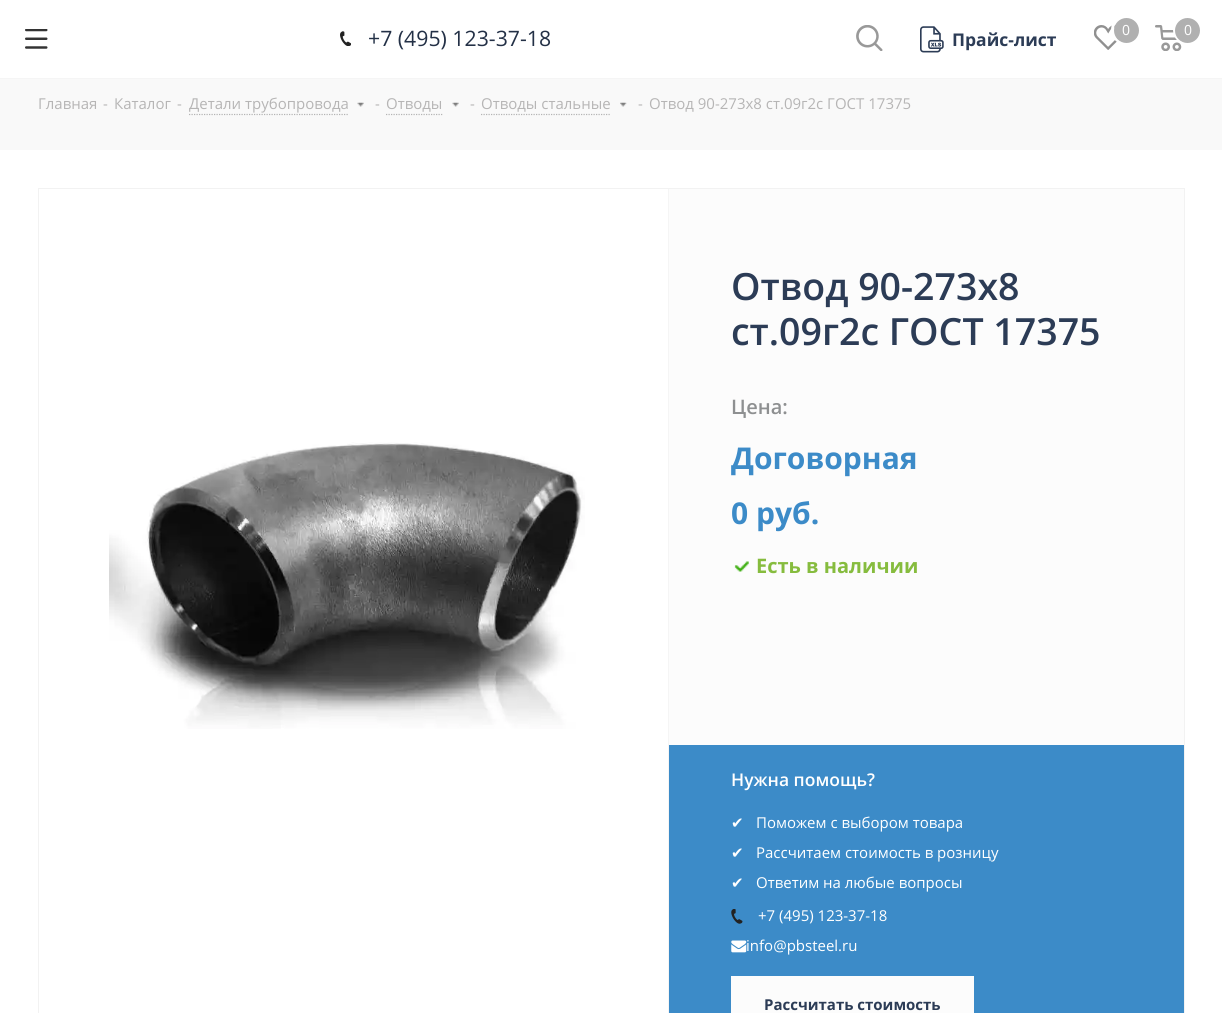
import math
import cairo



def draw_image(context, path, x, y, w, h):
    context.save()
    context.set_source_surface(cairo.ImageSurface.create_from_png(path), x, y)
    context.rectangle(x, y, w, h)
    context.fill()
    context.restore()


def draw(context):
    context.set_source_rgb(1, 1, 1)
    context.paint()
    context.set_source_rgb(245 / 255, 245 / 255, 245 / 255)
    context.rectangle(0, 78, 1222, 1)
    context.fill()
    draw_image(context, "images/1.png", 25, 29, 23, 20)
    draw_image(context, "images/2.png", 340, 31, 11, 15)
    draw_image(context, "images/3.png", 856, 25, 27, 26)
    draw_image(context, "images/4.png", 1094, 25, 25, 25)
    context.arc(1126, 30, 13.5, 0, 2 * math.pi)
    context.set_source_rgb(1, 1, 1)
    context.set_line_width(3)
    context.stroke()
    context.set_source_rgb(176 / 255, 176 / 255, 176 / 255)
    context.arc(1126.5, 30.5, 12.5, 0, 2 * math.pi)
    context.fill()
    draw_image(context, "images/5.png", 1155, 25, 27, 26)
    context.arc(1188, 30, 13.5, 0, 2 * math.pi)
    context.set_source_rgb(1, 1, 1)
    context.stroke()
    context.set_source_rgb(176 / 255, 176 / 255, 176 / 255)
    context.arc(1187.5, 30.5, 12.5, 0, 2 * math.pi)
    context.fill()
    draw_image(context, "images/6.png", 920, 26, 24, 27)
    context.set_source_rgb(249 / 255, 249 / 255, 249 / 255)
    context.rectangle(0, 79, 1222, 71)
    context.fill()
    context.new_path()
    context.move_to(189, 114.5)
    context.line_to(349, 114.5)
    context.set_source_rgb(180 / 255, 180 / 255, 180 / 255)
    context.set_line_width(1.2)
    context.set_dash([1.25, 1.25])
    context.stroke()
    draw_image(context, "images/7.png", 357, 102, 7, 5)
    context.new_path()
    context.move_to(386, 114.5)
    context.line_to(442.5, 114.5)
    context.stroke()
    draw_image(context, "images/8.png", 452, 102, 7, 5)
    context.new_path()
    context.move_to(481, 114.5)
    context.line_to(611, 114.5)
    context.stroke()
    draw_image(context, "images/9.png", 620, 102, 7, 5)
    context.rectangle(38.5, 188.5, 1146, 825)
    context.set_source_rgb(242 / 255, 242 / 255, 242 / 255)
    context.set_line_width(1)
    context.set_dash([])
    context.stroke()
    draw_image(context, "images/10.png", 109, 442, 476, 287)
    context.set_source_rgb(252 / 255, 252 / 255, 252 / 255)
    context.rectangle(669, 189, 515, 556)
    context.fill()
    context.set_source_rgb(245 / 255, 245 / 255, 245 / 255)
    context.rectangle(668, 189, 1, 824)
    context.fill()
    draw_image(context, "images/11.png", 734, 561, 15, 11)
    context.set_source_rgb(60 / 255, 139 / 255, 200 / 255)
    context.rectangle(669, 745, 515, 268)
    context.fill()
    draw_image(context, "images/12.png", 731, 909, 12, 15)
    draw_image(context, "images/13.png", 731, 940, 16, 13)
    context.set_source_rgb(252 / 255, 252 / 255, 252 / 255)
    context.rectangle(731, 976, 243, 37)
    context.fill()
    context.select_font_face("Open Sans")
    context.set_font_size(21.25)
    context.set_source_rgb(35 / 255, 48 / 255, 70 / 255)
    context.move_to(368, 46)
    context.show_text("+7 (495) 123-37-18")
    context.set_font_size(14)
    context.set_source_rgb(1, 1, 1)
    context.move_to(1122, 35)
    context.show_text("0")
    context.move_to(1184, 35)
    context.show_text("0")
    context.select_font_face("Open Sans", cairo.FontSlant.NORMAL, cairo.FontWeight.BOLD)
    context.set_font_size(17.5)
    context.set_source_rgb(44 / 255, 60 / 255, 86 / 255)
    context.move_to(952, 46)
    context.show_text("Прайс-лист")
    context.select_font_face("Open Sans")
    context.set_font_size(15)
    context.set_source_rgb(182 / 255, 181 / 255, 181 / 255)
    context.move_to(38, 109)
    context.show_text("Главная")
    context.move_to(103, 109)
    context.show_text("-")
    context.move_to(114, 109)
    context.show_text("Каталог")
    context.move_to(177, 109)
    context.show_text("-")
    context.move_to(189, 109)
    context.show_text("Детали трубопровода")
    context.move_to(375, 109)
    context.show_text("-")
    context.move_to(386, 109)
    context.show_text("Отводы")
    context.move_to(470, 109)
    context.show_text("-")
    context.move_to(481, 109)
    context.show_text("Отводы стальные")
    context.move_to(638, 109)
    context.show_text("-")
    context.move_to(649, 109)
    context.show_text("Отвод 90-273х8 ст.09г2с ГОСТ 17375")
    context.select_font_face("Open Sans SemiBold")
    context.set_font_size(37.5)
    context.set_source_rgb(44 / 255, 60 / 255, 86 / 255)
    context.move_to(731, 300)
    context.show_text("Отвод 90-273х8")
    context.move_to(731, 345)
    context.show_text("ст.09г2с ГОСТ 17375")
    context.set_font_size(20)
    context.set_source_rgb(142 / 255, 144 / 255, 145 / 255)
    context.move_to(731, 414)
    context.show_text("Цена:")
    context.select_font_face("Open Sans", cairo.FontSlant.NORMAL, cairo.FontWeight.BOLD)
    context.set_font_size(30)
    context.set_source_rgb(60 / 255, 139 / 255, 200 / 255)
    context.move_to(731, 469)
    context.show_text("Договорная")
    context.move_to(731, 524)
    context.show_text("0 руб.")
    context.set_font_size(20)
    context.set_source_rgb(134 / 255, 188 / 255, 62 / 255)
    context.move_to(756, 573)
    context.show_text("Есть в наличии")
    context.select_font_face("Open Sans SemiBold")
    context.set_font_size(17.5)
    context.set_source_rgb(1, 1, 1)
    context.move_to(731, 786)
    context.show_text("Нужна помощь?")
    context.select_font_face("DejaVu Sans")
    context.set_font_size(15)
    context.move_to(731, 828)
    context.show_text("✔")
    context.select_font_face("Open Sans")
    context.move_to(756, 828)
    context.show_text("Поможем с выбором товара")
    context.select_font_face("DejaVu Sans")
    context.move_to(731, 858)
    context.show_text("✔")
    context.select_font_face("Open Sans")
    context.move_to(756, 858)
    context.show_text("Рассчитаем стоимость в розницу")
    context.select_font_face("DejaVu Sans")
    context.move_to(731, 888)
    context.show_text("✔")
    context.select_font_face("Open Sans")
    context.move_to(756, 888)
    context.show_text("Ответим на любые вопросы")
    context.move_to(758, 921)
    context.show_text("+7 (495) 123-37-18")
    context.move_to(746, 951)
    context.show_text("info@pbsteel.ru")
    context.select_font_face("Open Sans", cairo.FontSlant.NORMAL, cairo.FontWeight.BOLD)
    context.set_source_rgb(44 / 255, 60 / 255, 86 / 255)
    context.move_to(764, 1010)
    context.show_text("Рассчитать стоимость")


surface = cairo.ImageSurface(cairo.Format.RGB24, 1222, 1013)
context = cairo.Context(surface)
options = cairo.FontOptions()
options.set_hint_metrics(cairo.HintMetrics.OFF)
options.set_hint_style(cairo.HintStyle.NONE)
context.set_font_options(options)
context.set_miter_limit(4)
draw(context)
surface.write_to_png("out.png")
